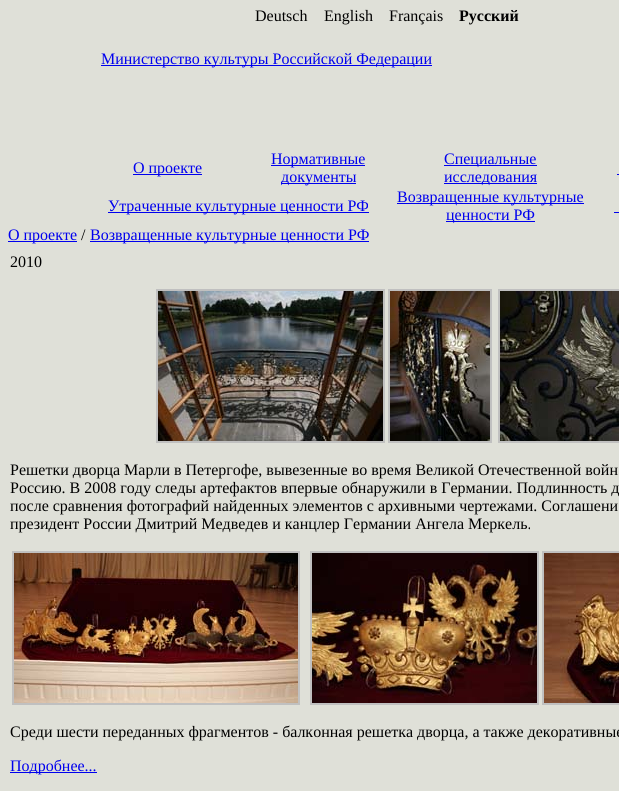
import math
import cairo



def draw_image(context, path, x, y, w, h):
    context.save()
    context.set_source_surface(cairo.ImageSurface.create_from_png(path), x, y)
    context.rectangle(x, y, w, h)
    context.fill()
    context.restore()


def draw(context):
    context.set_source_rgb(223 / 255, 224 / 255, 216 / 255)
    context.paint()
    context.set_source_rgb(0, 0, 238 / 255)
    context.rectangle(101, 65, 331, 1)
    context.fill()
    context.rectangle(133, 174, 69, 1)
    context.fill()
    context.rectangle(271, 165, 94, 1)
    context.fill()
    context.rectangle(281, 183, 75, 1)
    context.fill()
    context.rectangle(444, 165, 93, 1)
    context.fill()
    context.rectangle(444, 183, 93, 1)
    context.fill()
    context.rectangle(617, 174, 2, 1)
    context.fill()
    context.rectangle(108, 212, 261, 1)
    context.fill()
    context.rectangle(397, 203, 187, 1)
    context.fill()
    context.rectangle(446, 221, 89, 1)
    context.fill()
    context.rectangle(614, 212, 5, 1)
    context.fill()
    context.rectangle(8, 241, 69, 1)
    context.fill()
    context.rectangle(90, 241, 279, 1)
    context.fill()
    context.rectangle(157, 290, 227, 152)
    context.set_source_rgb(192 / 255, 192 / 255, 192 / 255)
    context.stroke()
    draw_image(context, "images/1.png", 158, 291, 225, 150)
    context.rectangle(389, 290, 102, 152)
    context.stroke()
    draw_image(context, "images/2.png", 390, 291, 100, 150)
    context.rectangle(499, 290, 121, 152)
    context.stroke()
    draw_image(context, "images/3.png", 500, 291, 119, 150)
    context.rectangle(13, 552, 286, 152)
    context.stroke()
    draw_image(context, "images/4.png", 14, 553, 284, 150)
    context.rectangle(311, 552, 227, 152)
    context.stroke()
    draw_image(context, "images/5.png", 312, 553, 225, 150)
    context.rectangle(543, 552, 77, 152)
    context.stroke()
    draw_image(context, "images/6.png", 544, 553, 75, 150)
    context.set_source_rgb(0, 0, 238 / 255)
    context.rectangle(10, 772, 87, 1)
    context.fill()
    context.select_font_face("Liberation Serif")
    context.set_font_size(16)
    context.set_source_rgb(0, 0, 0)
    context.move_to(255, 21)
    context.show_text("Deutsch")
    context.move_to(324, 21)
    context.show_text("English")
    context.move_to(389, 21)
    context.show_text("Français")
    context.select_font_face("Liberation Serif", cairo.FontSlant.NORMAL, cairo.FontWeight.BOLD)
    context.move_to(459, 21)
    context.show_text("Русский")
    context.select_font_face("Liberation Serif")
    context.set_source_rgb(0, 0, 238 / 255)
    context.move_to(101, 64)
    context.show_text("Министерство культуры Российской Федерации")
    context.move_to(133, 173)
    context.show_text("О проекте")
    context.move_to(271, 164)
    context.show_text("Нормативные")
    context.move_to(281, 182)
    context.show_text("документы")
    context.move_to(444, 164)
    context.show_text("Специальные")
    context.move_to(444, 182)
    context.show_text("исследования")
    context.move_to(108, 211)
    context.show_text("Утраченные культурные ценности РФ")
    context.move_to(397, 202)
    context.show_text("Возвращенные культурные")
    context.move_to(446, 220)
    context.show_text("ценности РФ")
    context.move_to(8, 240)
    context.show_text("О проекте")
    context.set_source_rgb(0, 0, 0)
    context.move_to(81, 240)
    context.show_text("/")
    context.set_source_rgb(0, 0, 238 / 255)
    context.move_to(90, 240)
    context.show_text("Возвращенные культурные ценности РФ")
    context.set_source_rgb(0, 0, 0)
    context.move_to(10, 267)
    context.show_text("2010")
    context.move_to(10, 475)
    context.show_text("Решетки дворца Марли в Петергофе, вывезенные во время Великой Отечественной войн")
    context.move_to(10, 493)
    context.show_text("Россию. В 2008 году следы артефактов впервые обнаружили в Германии. Подлинность д")
    context.move_to(10, 511)
    context.show_text("после сравнения фотографий найденных элементов с архивными чертежами. Соглашени")
    context.move_to(10, 529)
    context.show_text("президент России Дмитрий Медведев и канцлер Германии Ангела Меркель.")
    context.move_to(10, 737)
    context.show_text("Среди шести переданных фрагментов - балконная решетка дворца, а также декоративные")
    context.set_source_rgb(0, 0, 238 / 255)
    context.move_to(10, 771)
    context.show_text("Подробнее...")


surface = cairo.ImageSurface(cairo.Format.RGB24, 619, 791)
context = cairo.Context(surface)
options = cairo.FontOptions()
options.set_hint_metrics(cairo.HintMetrics.OFF)
options.set_hint_style(cairo.HintStyle.NONE)
context.set_font_options(options)
context.set_miter_limit(4)
draw(context)
surface.write_to_png("out.png")
